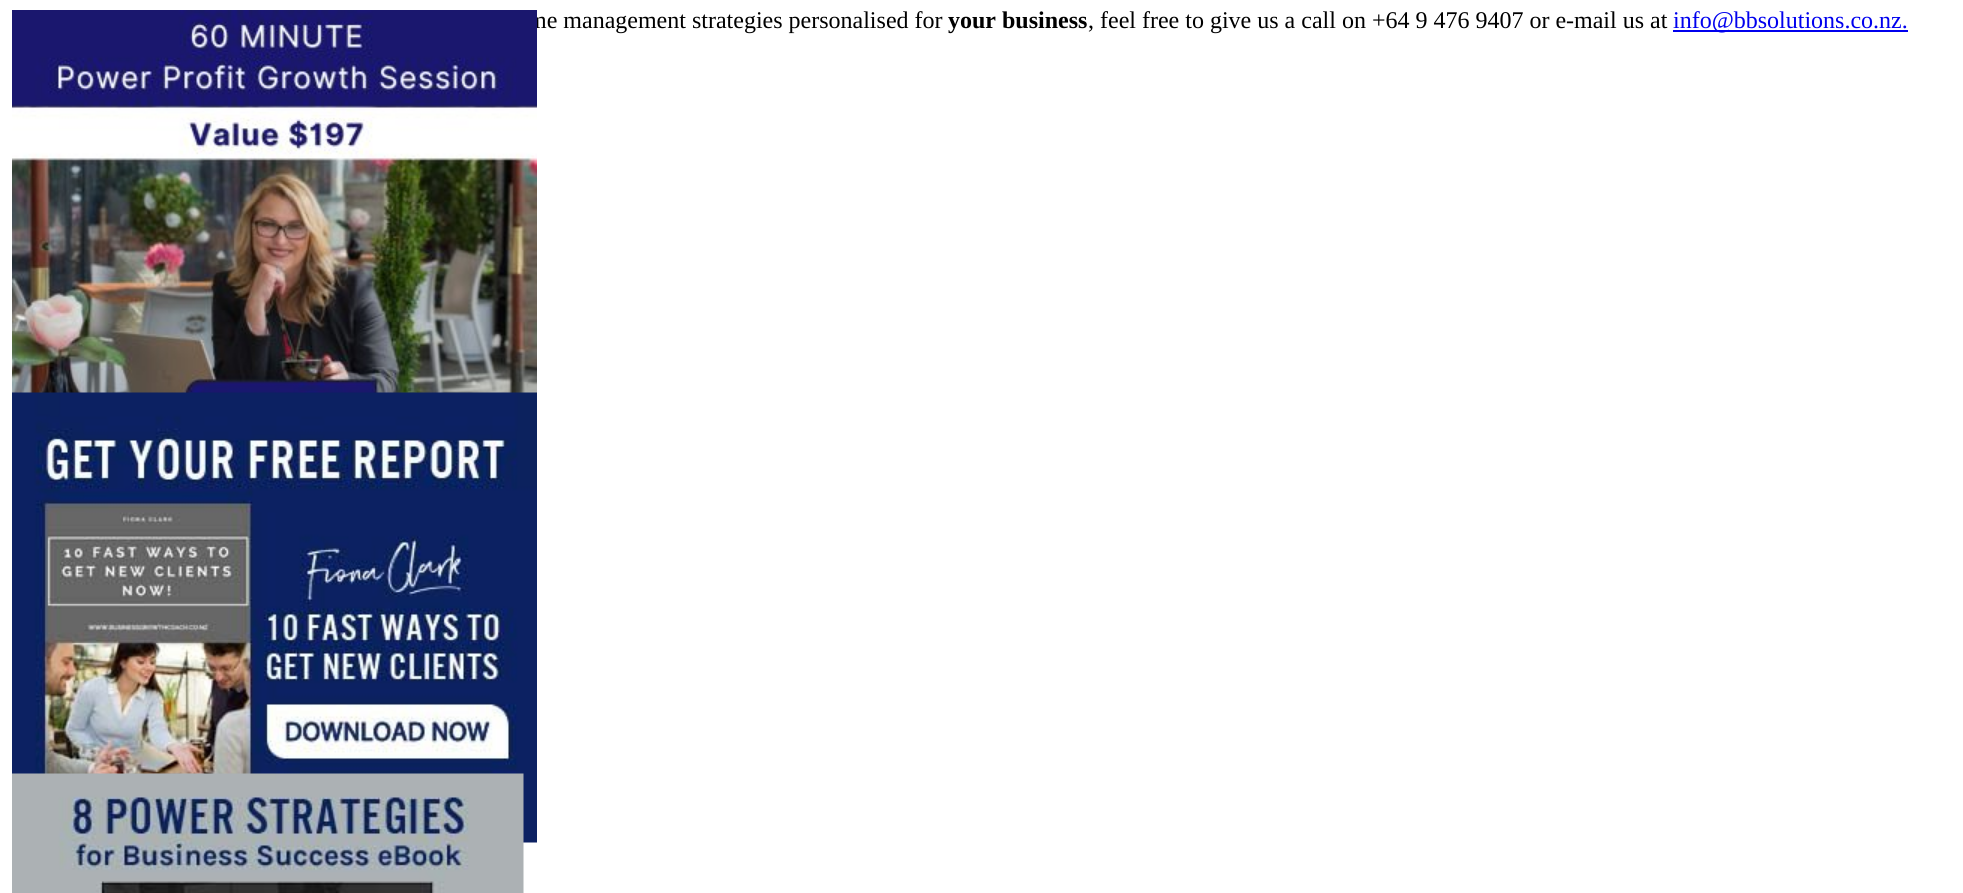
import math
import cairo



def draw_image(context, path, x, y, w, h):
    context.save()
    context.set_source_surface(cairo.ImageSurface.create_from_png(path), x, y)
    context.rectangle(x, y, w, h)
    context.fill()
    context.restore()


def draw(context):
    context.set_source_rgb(1, 1, 1)
    context.paint()
    context.set_source_rgb(0, 0, 238 / 255)
    context.rectangle(1673, 30, 235, 2)
    context.fill()
    context.select_font_face("Liberation Serif")
    context.set_font_size(24)
    context.set_source_rgb(0, 0, 0)
    context.move_to(528, 28)
    context.show_text("me management strategies personalised for")
    draw_image(context, "images/1.png", 12, 10, 525, 383)
    draw_image(context, "images/2.png", 12, 392, 525, 451)
    draw_image(context, "images/3.png", 12, 773, 512, 120)
    context.select_font_face("Liberation Serif", cairo.FontSlant.NORMAL, cairo.FontWeight.BOLD)
    context.move_to(948, 28)
    context.show_text("your business")
    context.select_font_face("Liberation Serif")
    context.move_to(1088, 28)
    context.show_text(", feel free to give us a call on +64 9 476 9407 or e-mail us at")
    context.set_source_rgb(0, 0, 238 / 255)
    context.move_to(1673, 28)
    context.show_text("info@bbsolutions.co.nz.")


surface = cairo.ImageSurface(cairo.Format.RGB24, 1963, 893)
context = cairo.Context(surface)
options = cairo.FontOptions()
options.set_hint_metrics(cairo.HintMetrics.OFF)
options.set_hint_style(cairo.HintStyle.NONE)
context.set_font_options(options)
context.set_miter_limit(4)
draw(context)
surface.write_to_png("out.png")
